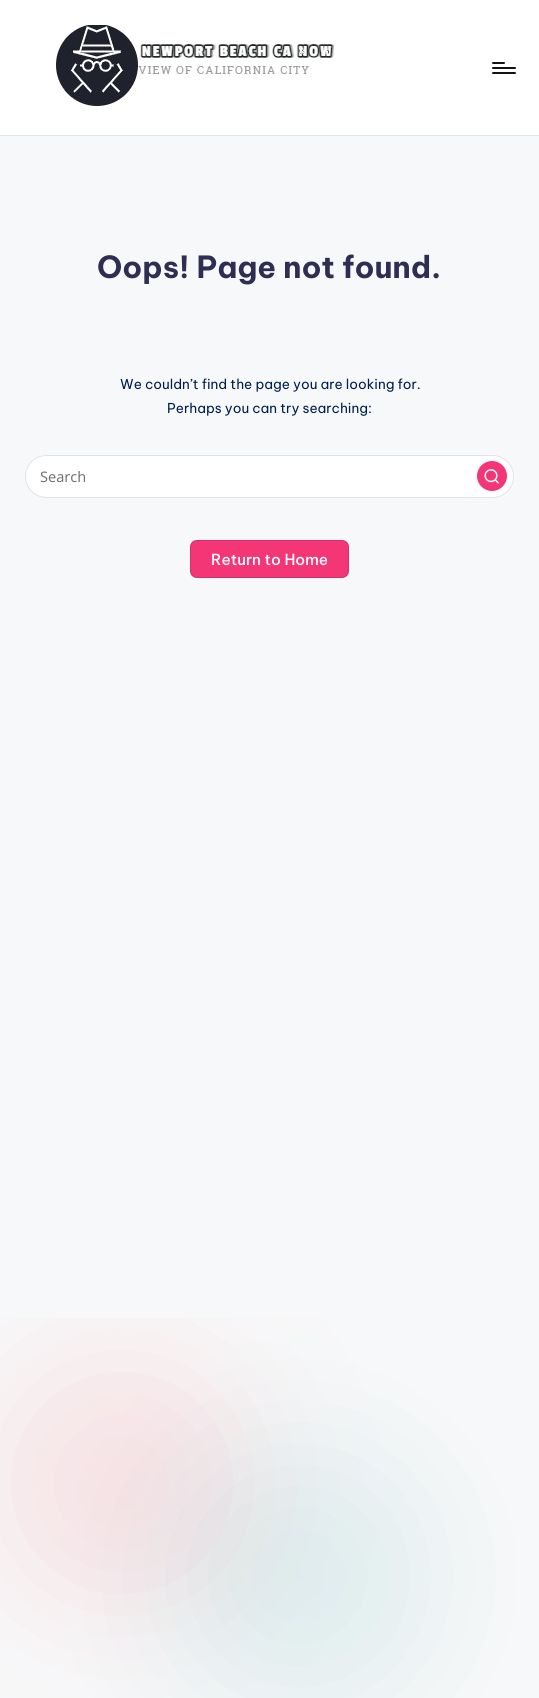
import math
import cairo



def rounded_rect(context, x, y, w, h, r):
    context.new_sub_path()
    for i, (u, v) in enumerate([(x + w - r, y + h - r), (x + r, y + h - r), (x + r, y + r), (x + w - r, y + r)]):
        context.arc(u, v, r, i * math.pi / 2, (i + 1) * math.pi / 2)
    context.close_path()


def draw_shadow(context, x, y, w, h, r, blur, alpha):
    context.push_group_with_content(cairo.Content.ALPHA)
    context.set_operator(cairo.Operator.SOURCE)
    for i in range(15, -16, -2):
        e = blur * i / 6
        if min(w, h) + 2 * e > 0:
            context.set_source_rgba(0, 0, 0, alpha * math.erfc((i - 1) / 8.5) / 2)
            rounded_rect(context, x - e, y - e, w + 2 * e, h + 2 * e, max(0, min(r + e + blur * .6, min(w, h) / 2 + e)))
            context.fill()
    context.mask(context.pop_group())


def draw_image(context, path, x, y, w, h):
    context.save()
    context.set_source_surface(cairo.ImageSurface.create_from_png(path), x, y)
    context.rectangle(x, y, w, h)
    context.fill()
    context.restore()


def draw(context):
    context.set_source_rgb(247 / 255, 248 / 255, 249 / 255)
    context.paint()
    context.set_source_rgb(1, 1, 1)
    context.rectangle(0, 0, 539, 135)
    context.fill()
    context.set_source_rgb(227 / 255, 227 / 255, 227 / 255)
    context.rectangle(0, 135, 539, 1)
    context.fill()
    draw_image(context, "images/1.png", 56, 25, 279, 81)
    context.set_source_rgb(19 / 255, 19 / 255, 21 / 255)
    rounded_rect(context, 492, 67, 24, 2, 1)
    context.fill()
    rounded_rect(context, 492, 62, 13, 2, 1)
    context.fill()
    rounded_rect(context, 492, 72, 24, 2, 1)
    context.fill()
    context.set_source_rgb(1, 1, 1)
    rounded_rect(context, 25, 455, 489, 43, 21.5)
    context.fill()
    rounded_rect(context, 25.5, 455.5, 488, 42, 21)
    context.set_source_rgba(185 / 255, 185 / 255, 185 / 255, 0.4)
    context.set_line_width(1)
    context.stroke()
    context.set_source_rgb(244 / 255, 54 / 255, 118 / 255)
    context.arc(492, 476, 15, 0, 2 * math.pi)
    context.fill()
    draw_image(context, "images/2.png", 484, 469, 15, 15)
    rounded_rect(context, 190, 540, 159, 38, 7)
    context.fill()
    rounded_rect(context, 190.5, 540.5, 158, 37, 6.5)
    context.set_source_rgba(0, 0, 0, 0.12)
    context.stroke()
    context.save()
    context.rectangle(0, 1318, 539, 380)
    context.clip()
    context.set_source_rgb(247 / 255, 227 / 255, 230 / 255)
    draw_shadow(context, 0, 1361, 244, 244, 122, 64, 1)
    context.restore()
    context.set_source_rgb(4 / 255, 134 / 255, 139 / 255)
    draw_shadow(context, 176, 1454, 245, 244, 122, 64, 0.1)
    context.select_font_face("Be Vietnam Pro", cairo.FontSlant.NORMAL, cairo.FontWeight.BOLD)
    context.set_font_size(30.5)
    context.set_source_rgb(48 / 255, 45 / 255, 85 / 255)
    context.move_to(97, 278)
    context.show_text("Oops! Page not found.")
    context.select_font_face("Be Vietnam Pro")
    context.set_font_size(13.6)
    context.set_source_rgb(0, 32 / 255, 80 / 255)
    context.move_to(120, 389)
    context.show_text("We couldn’t find the page you are looking for.")
    context.move_to(167, 413)
    context.show_text("Perhaps you can try searching:")
    context.select_font_face("Noto Sans")
    context.set_font_size(14.5)
    context.set_source_rgb(117 / 255, 117 / 255, 117 / 255)
    context.move_to(40, 482)
    context.show_text("Search")
    context.select_font_face("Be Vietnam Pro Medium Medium")
    context.set_font_size(15.25)
    context.set_source_rgb(1, 1, 1)
    context.move_to(211, 565)
    context.show_text("Return to Home")


surface = cairo.ImageSurface(cairo.Format.RGB24, 539, 1698)
context = cairo.Context(surface)
options = cairo.FontOptions()
options.set_hint_metrics(cairo.HintMetrics.OFF)
options.set_hint_style(cairo.HintStyle.NONE)
context.set_font_options(options)
context.set_miter_limit(4)
draw(context)
surface.write_to_png("out.png")
